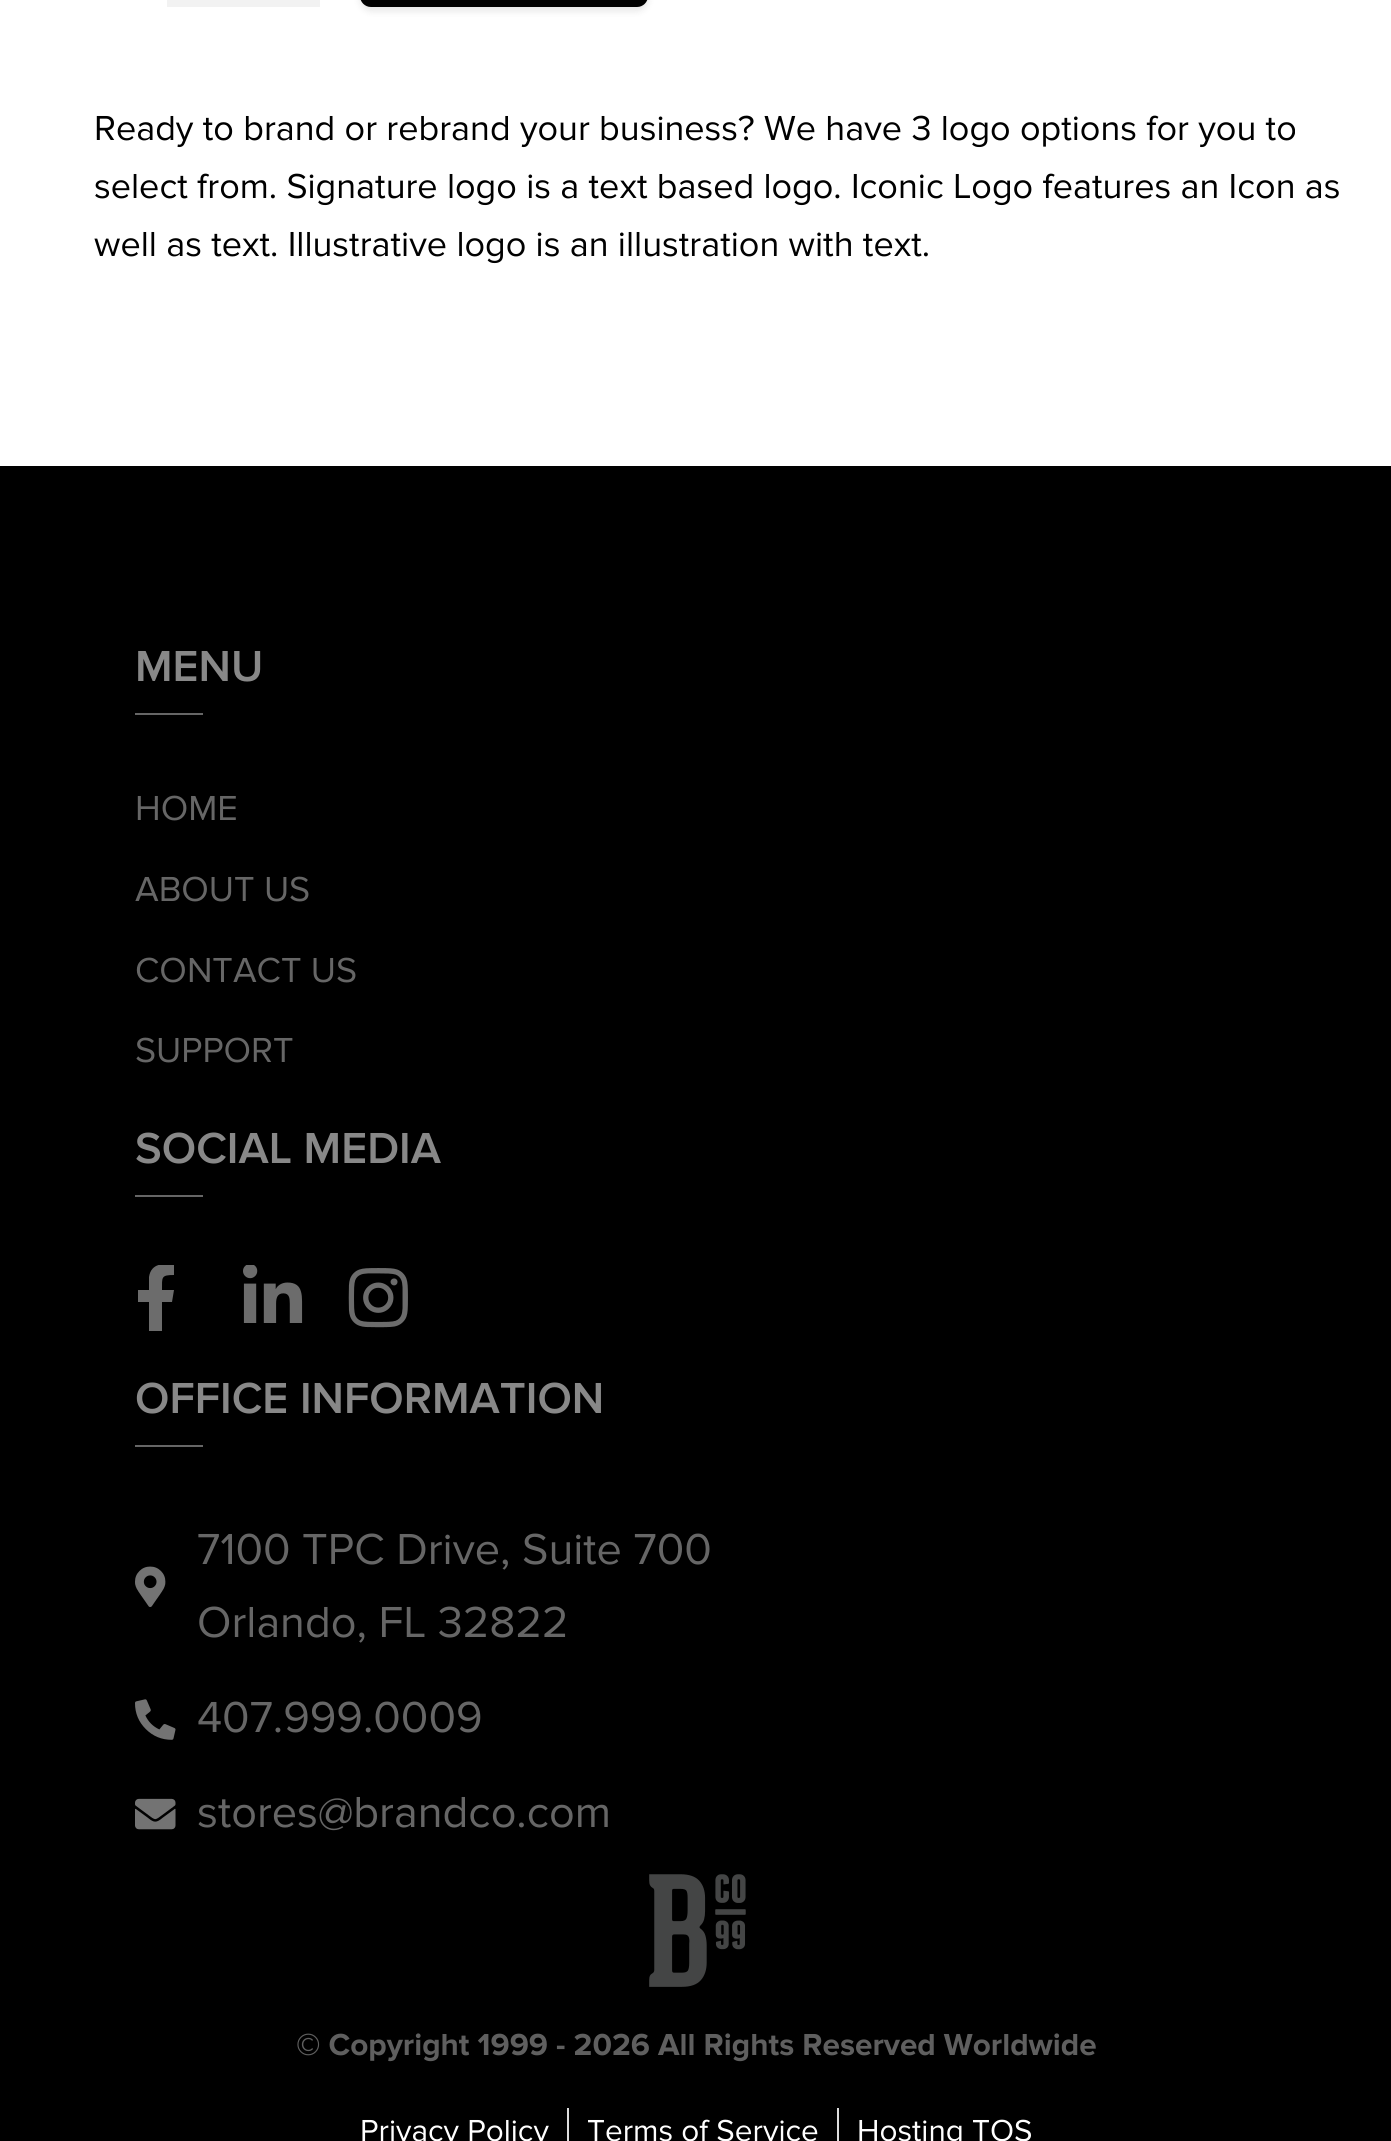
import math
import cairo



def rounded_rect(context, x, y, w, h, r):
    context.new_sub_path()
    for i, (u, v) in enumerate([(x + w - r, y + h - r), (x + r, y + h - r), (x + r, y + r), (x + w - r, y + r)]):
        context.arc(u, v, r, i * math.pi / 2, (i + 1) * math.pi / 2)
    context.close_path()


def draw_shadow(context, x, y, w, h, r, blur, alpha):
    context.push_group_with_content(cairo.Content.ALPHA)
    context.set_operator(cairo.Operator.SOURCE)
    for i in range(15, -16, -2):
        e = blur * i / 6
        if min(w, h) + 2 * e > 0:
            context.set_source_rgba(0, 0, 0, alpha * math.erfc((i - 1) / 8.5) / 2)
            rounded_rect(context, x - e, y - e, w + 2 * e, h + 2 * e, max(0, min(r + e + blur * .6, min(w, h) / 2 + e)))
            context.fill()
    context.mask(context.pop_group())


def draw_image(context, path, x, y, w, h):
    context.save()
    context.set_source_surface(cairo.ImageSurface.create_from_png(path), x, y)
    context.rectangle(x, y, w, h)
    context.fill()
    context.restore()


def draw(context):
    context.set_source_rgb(1, 1, 1)
    context.paint()
    context.set_source_rgb(242 / 255, 242 / 255, 242 / 255)
    context.rectangle(167, 0, 153, 7)
    context.fill()
    context.set_source_rgb(0, 0, 0)
    draw_shadow(context, 360, -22, 288, 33, 11, 3.5, 0.1)
    context.set_source_rgb(0, 0, 0)
    rounded_rect(context, 360, -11, 288, 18, 11)
    context.fill()
    context.rectangle(0, 466, 1391, 1675)
    context.fill()
    context.set_source_rgb(102 / 255, 102 / 255, 102 / 255)
    context.rectangle(135, 713, 68, 2)
    context.fill()
    context.rectangle(135, 1195, 68, 2)
    context.fill()
    context.save()
    context.rectangle(135, 1265, 1123, 67)
    context.clip()
    context.set_source_rgb(108 / 255, 108 / 255, 108 / 255)
    context.new_path()
    context.move_to(172, 1302)
    context.line_to(162, 1302)
    context.line_to(162, 1331)
    context.line_to(149, 1331)
    context.line_to(149, 1302)
    context.line_to(138, 1302)
    context.line_to(138, 1290)
    context.line_to(149, 1290)
    context.line_to(149, 1277)
    context.curve_to(151, 1263, 164, 1263, 174, 1265)
    context.line_to(174, 1275)
    context.curve_to(161, 1275, 162, 1277, 162, 1290)
    context.line_to(174, 1290)
    context.close_path()
    context.fill()
    context.restore()
    draw_image(context, "images/1.png", 243, 1265, 60, 58)
    draw_image(context, "images/2.png", 348, 1268, 60, 60)
    context.rectangle(135, 1445, 68, 2)
    context.fill()
    draw_image(context, "images/3.png", 135, 1566, 31, 41)
    draw_image(context, "images/4.png", 135, 1699, 41, 41)
    draw_image(context, "images/5.png", 135, 1798, 41, 32)
    draw_image(context, "images/6.png", 649, 1874, 97, 113)
    context.set_source_rgb(221 / 255, 221 / 255, 221 / 255)
    context.rectangle(567, 2108, 2, 33)
    context.fill()
    context.rectangle(837, 2108, 2, 33)
    context.fill()
    context.select_font_face("Proxima Nova")
    context.set_font_size(36)
    context.set_source_rgb(0, 0, 0)
    context.move_to(94, 140)
    context.show_text("Ready to brand or rebrand your business? We have 3 logo options for you to")
    context.move_to(94, 198)
    context.show_text("select from. Signature logo is a text based logo. Iconic Logo features an Icon as")
    context.move_to(94, 256)
    context.show_text("well as text. Illustrative logo is an illustration with text.")
    context.select_font_face("Proxima Nova SemiBold")
    context.set_font_size(45)
    context.set_source_rgb(136 / 255, 136 / 255, 136 / 255)
    context.move_to(135, 681)
    context.show_text("MENU")
    context.select_font_face("Proxima Nova")
    context.set_font_size(36)
    context.set_source_rgb(102 / 255, 102 / 255, 102 / 255)
    context.move_to(135, 820)
    context.show_text("HOME")
    context.move_to(135, 901)
    context.show_text("ABOUT US")
    context.move_to(135, 982)
    context.show_text("CONTACT US")
    context.move_to(135, 1062)
    context.show_text("SUPPORT")
    context.select_font_face("Proxima Nova SemiBold")
    context.set_font_size(45)
    context.set_source_rgb(136 / 255, 136 / 255, 136 / 255)
    context.move_to(135, 1163)
    context.show_text("SOCIAL MEDIA")
    context.move_to(135, 1413)
    context.show_text("OFFICE INFORMATION")
    context.select_font_face("Proxima Nova")
    context.set_source_rgb(102 / 255, 102 / 255, 102 / 255)
    context.move_to(197, 1564)
    context.show_text("7100 TPC Drive, Suite 700")
    context.move_to(197, 1637)
    context.show_text("Orlando, FL 32822")
    context.move_to(197, 1732)
    context.show_text("407.999.0009")
    context.move_to(197, 1827)
    context.show_text("stores@brandco.com")
    context.select_font_face("Proxima Nova", cairo.FontSlant.NORMAL, cairo.FontWeight.BOLD)
    context.set_font_size(31.5)
    context.set_source_rgb(95 / 255, 95 / 255, 95 / 255)
    context.move_to(296, 2055)
    context.show_text("© Copyright 1999 - 2026 All Rights Reserved Worldwide")
    context.select_font_face("Proxima Nova")
    context.set_source_rgb(1, 1, 1)
    context.move_to(360, 2141)
    context.show_text("Privacy Policy")
    context.move_to(587, 2141)
    context.show_text("Terms of Service")
    context.move_to(857, 2141)
    context.show_text("Hosting TOS")


surface = cairo.ImageSurface(cairo.Format.RGB24, 1391, 2141)
context = cairo.Context(surface)
options = cairo.FontOptions()
options.set_hint_metrics(cairo.HintMetrics.OFF)
options.set_hint_style(cairo.HintStyle.NONE)
context.set_font_options(options)
context.set_miter_limit(4)
draw(context)
surface.write_to_png("out.png")
